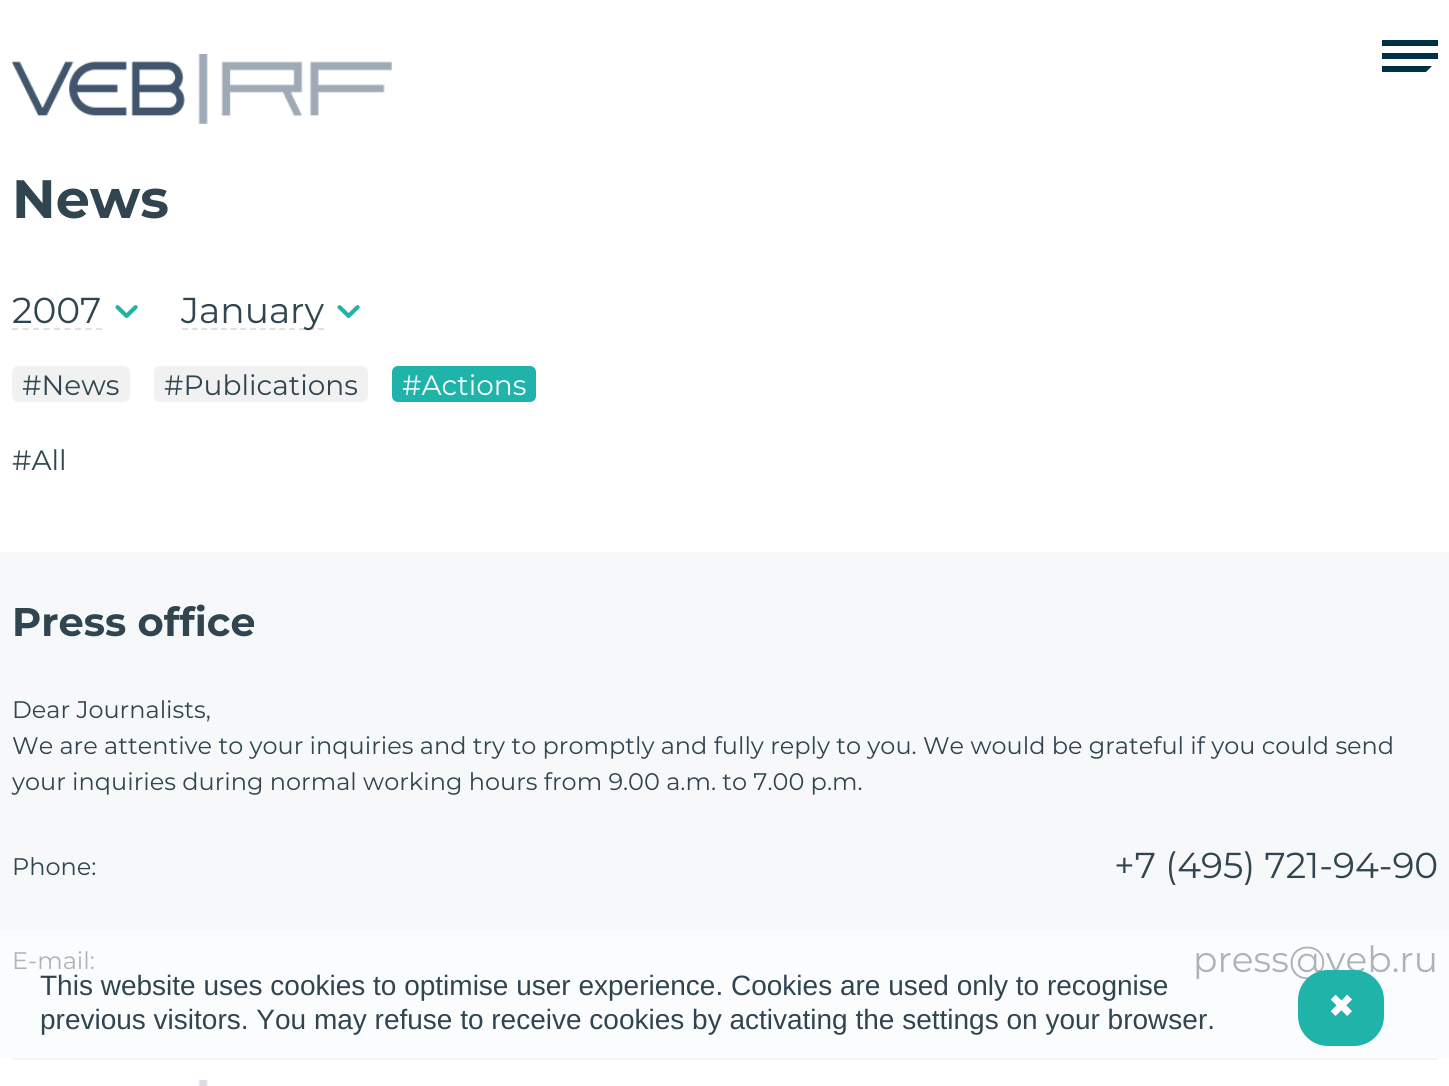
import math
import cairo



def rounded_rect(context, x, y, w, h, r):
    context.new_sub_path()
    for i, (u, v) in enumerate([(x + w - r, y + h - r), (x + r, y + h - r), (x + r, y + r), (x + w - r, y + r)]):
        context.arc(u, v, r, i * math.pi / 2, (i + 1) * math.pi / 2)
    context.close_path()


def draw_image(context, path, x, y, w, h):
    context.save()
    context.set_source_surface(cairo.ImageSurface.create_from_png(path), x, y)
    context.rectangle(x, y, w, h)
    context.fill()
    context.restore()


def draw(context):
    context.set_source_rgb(1, 1, 1)
    context.paint()
    draw_image(context, "images/1.png", 12, 54, 380, 70)
    context.save()
    context.rectangle(1382, 40, 56, 32)
    context.clip()
    context.set_source_rgb(0, 48 / 255, 72 / 255)
    context.new_path()
    context.move_to(1382, 59)
    context.line_to(1382, 53)
    context.line_to(1439, 53)
    context.line_to(1439, 59)
    context.close_path()
    context.move_to(1382, 40)
    context.line_to(1439, 40)
    context.line_to(1439, 46)
    context.line_to(1382, 46)
    context.close_path()
    context.move_to(1426, 72)
    context.line_to(1382, 72)
    context.line_to(1382, 66)
    context.line_to(1432, 66)
    context.close_path()
    context.fill()
    context.restore()
    context.new_path()
    context.move_to(12, 329)
    context.line_to(102, 329)
    context.set_source_rgb(224 / 255, 224 / 255, 224 / 255)
    context.set_dash([6, 4.5])
    context.stroke()
    draw_image(context, "images/2.png", 115, 305, 23, 13)
    context.new_path()
    context.move_to(182, 329)
    context.line_to(324, 329)
    context.set_dash([6, 3.72])
    context.stroke()
    draw_image(context, "images/2.png", 337, 305, 23, 13)
    context.set_source_rgb(241 / 255, 241 / 255, 241 / 255)
    rounded_rect(context, 12, 366, 118, 36, 6)
    context.fill()
    rounded_rect(context, 154, 366, 214, 36, 6)
    context.fill()
    context.set_source_rgb(31 / 255, 179 / 255, 170 / 255)
    rounded_rect(context, 392, 366, 144, 36, 6)
    context.fill()
    context.set_source_rgb(246 / 255, 248 / 255, 249 / 255)
    context.rectangle(0, 552, 1449, 378)
    context.fill()
    context.set_source_rgb(251 / 255, 252 / 255, 253 / 255)
    context.rectangle(0, 930, 1449, 128)
    context.fill()
    context.set_source_rgb(245 / 255, 245 / 255, 245 / 255)
    context.rectangle(12, 1058, 1426, 2)
    context.fill()
    draw_image(context, "images/3.png", 198, 1080, 10, 6)
    context.select_font_face("Montserrat", cairo.FontSlant.NORMAL, cairo.FontWeight.BOLD)
    context.set_font_size(54)
    context.set_source_rgb(48 / 255, 69 / 255, 79 / 255)
    context.move_to(12, 218)
    context.show_text("News")
    context.select_font_face("Montserrat")
    context.set_font_size(36)
    context.move_to(12, 323)
    context.show_text("2007")
    context.move_to(181, 323)
    context.show_text("January")
    context.set_font_size(28)
    context.move_to(22, 395)
    context.show_text("#News")
    context.move_to(164, 395)
    context.show_text("#Publications")
    context.set_source_rgb(1, 1, 1)
    context.move_to(402, 395)
    context.show_text("#Actions")
    context.set_source_rgb(48 / 255, 69 / 255, 79 / 255)
    context.move_to(12, 470)
    context.show_text("#All")
    context.select_font_face("Montserrat", cairo.FontSlant.NORMAL, cairo.FontWeight.BOLD)
    context.set_font_size(40)
    context.move_to(12, 636)
    context.show_text("Press office")
    context.select_font_face("Montserrat")
    context.set_font_size(24)
    context.move_to(12, 718)
    context.show_text("Dear Journalists,")
    context.move_to(12, 754)
    context.show_text("We are attentive to your inquiries and try to promptly and fully reply to you. We would be grateful if you could send")
    context.move_to(12, 790)
    context.show_text("your inquiries during normal working hours from 9.00 a.m. to 7.00 p.m.")
    context.move_to(12, 875)
    context.show_text("Phone:")
    context.set_font_size(36)
    context.move_to(1114, 878)
    context.show_text("+7 (495) 721-94-90")
    context.set_font_size(24)
    context.set_source_rgb(172 / 255, 180 / 255, 184 / 255)
    context.move_to(12, 969)
    context.show_text("E-mail:")
    context.set_font_size(36)
    context.move_to(1193, 972)
    context.show_text("press@veb.ru")
    context.select_font_face("Liberation Sans")
    context.set_font_size(28)
    context.set_source_rgb(48 / 255, 69 / 255, 79 / 255)
    context.move_to(40, 995)
    context.show_text("This website uses cookies to optimise user experience. Cookies are used only to recognise")
    context.move_to(40, 1029)
    context.show_text("previous visitors. You may refuse to receive cookies by activating the settings on your browser.")
    context.set_source_rgb(31 / 255, 179 / 255, 170 / 255)
    rounded_rect(context, 1298, 970, 86, 76, 30)
    context.fill()
    context.select_font_face("DejaVu Sans")
    context.set_font_size(32)
    context.set_source_rgb(1, 1, 1)
    context.move_to(1328, 1017)
    context.show_text("✖")


surface = cairo.ImageSurface(cairo.Format.RGB24, 1449, 1086)
context = cairo.Context(surface)
options = cairo.FontOptions()
options.set_hint_metrics(cairo.HintMetrics.OFF)
options.set_hint_style(cairo.HintStyle.NONE)
context.set_font_options(options)
context.set_miter_limit(4)
draw(context)
surface.write_to_png("out.png")
